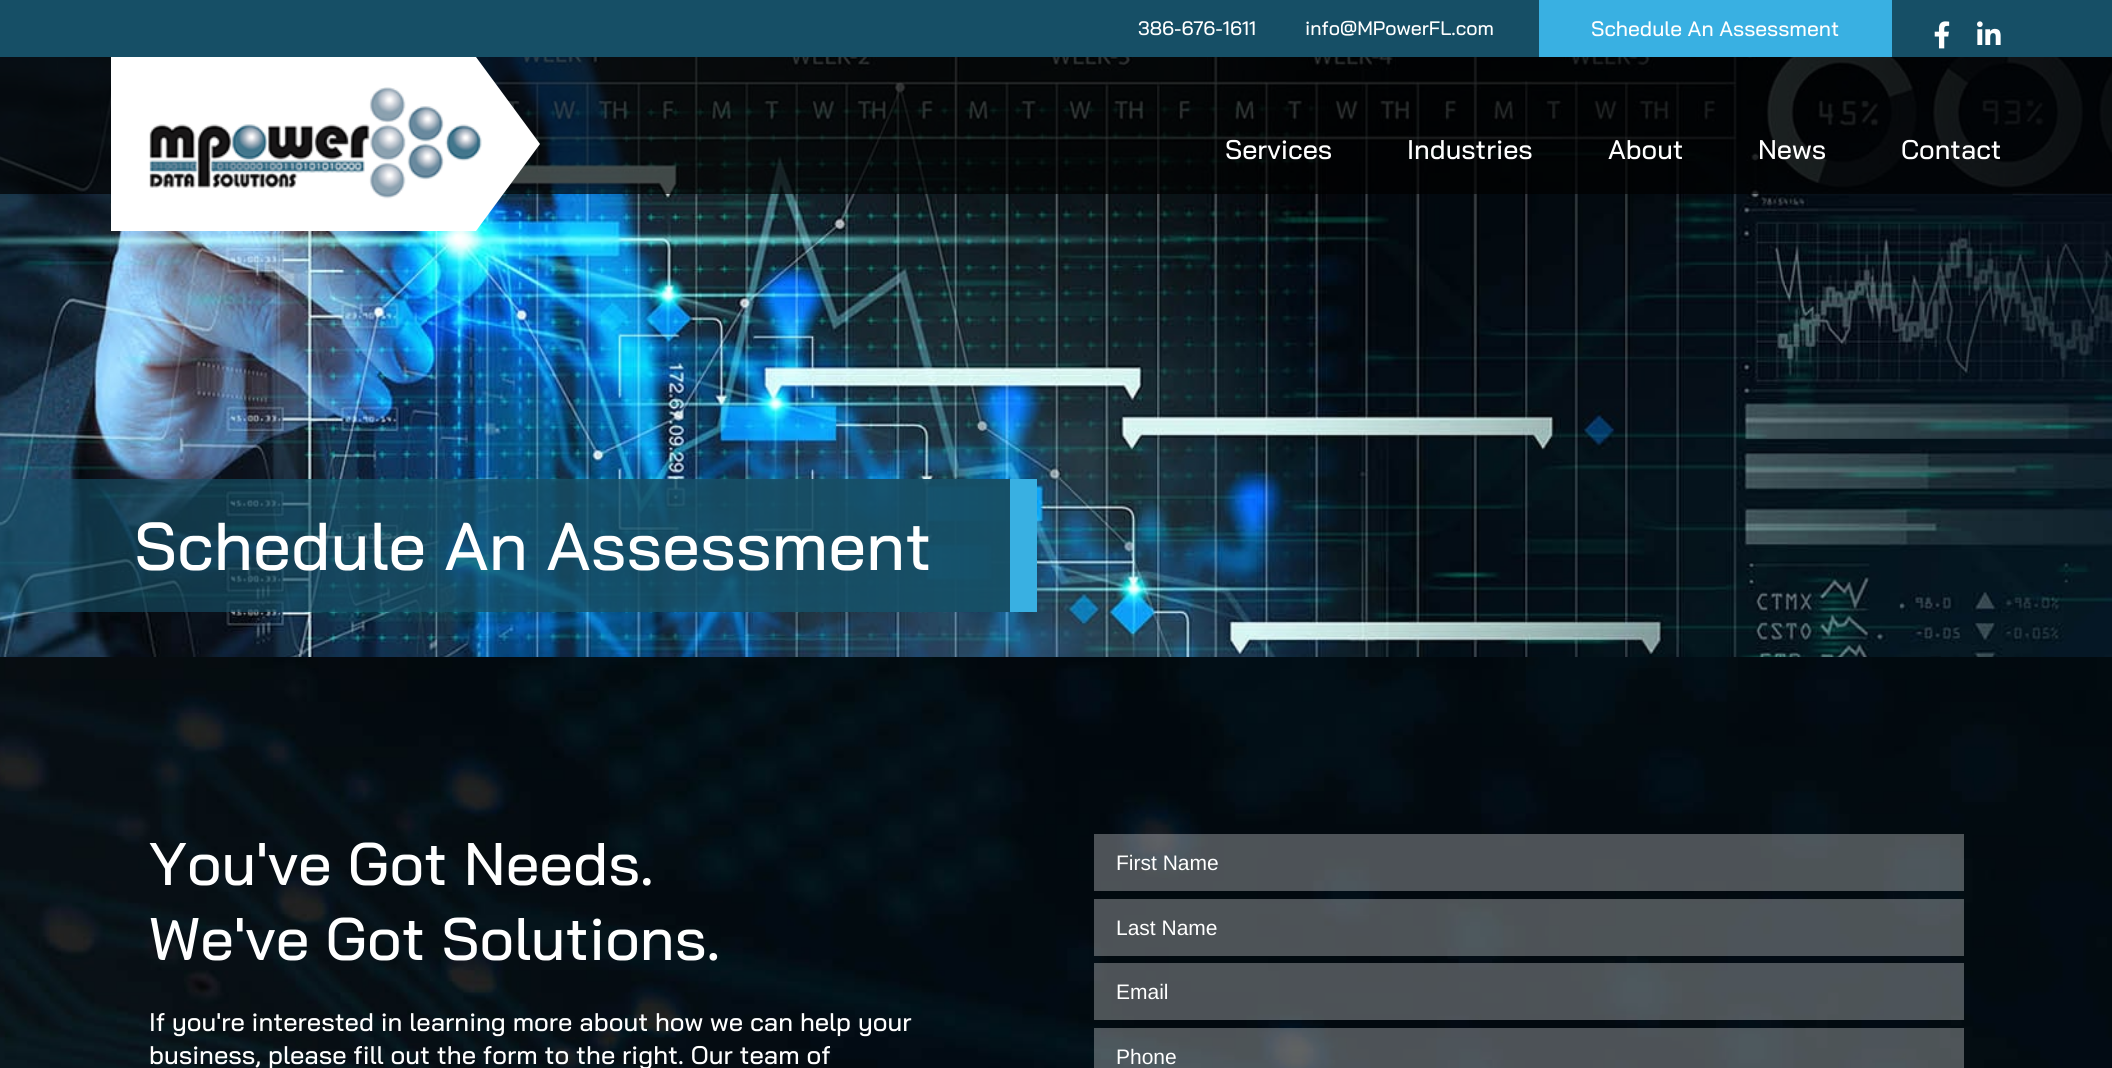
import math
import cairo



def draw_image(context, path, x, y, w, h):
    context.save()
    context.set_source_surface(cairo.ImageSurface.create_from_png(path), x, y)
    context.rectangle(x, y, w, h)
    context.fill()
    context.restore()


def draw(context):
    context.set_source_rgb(1, 1, 1)
    context.paint()
    draw_image(context, "images/4.png", 0, 57, 2112, 600)
    context.set_source_rgba(0, 0, 0, 0.7)
    context.rectangle(0, 57, 2112, 137)
    context.fill()
    context.set_source_rgb(22 / 255, 79 / 255, 102 / 255)
    context.rectangle(0, 0, 2112, 57)
    context.fill()
    context.set_source_rgb(57 / 255, 176 / 255, 226 / 255)
    context.rectangle(1539, 0, 353, 57)
    context.fill()
    draw_image(context, "images/1.png", 1934, 21, 16, 28)
    draw_image(context, "images/2.png", 1977, 21, 24, 24)
    context.set_source_rgb(1, 1, 1)
    context.new_path()
    context.move_to(111, 57)
    context.line_to(111, 231)
    context.line_to(476, 231)
    context.line_to(540, 144)
    context.line_to(476, 57)
    context.close_path()
    context.fill()
    draw_image(context, "images/3.png", 149, 87, 333, 112)
    context.set_source_rgba(22 / 255, 79 / 255, 102 / 255, 0.6)
    context.rectangle(0, 479, 111, 133)
    context.fill()
    context.set_source_rgb(57 / 255, 176 / 255, 226 / 255)
    context.rectangle(1010, 479, 27, 133)
    context.fill()
    draw_image(context, "images/5.png", 0, 657, 2112, 411)
    context.set_source_rgba(1, 1, 1, 0.3)
    context.rectangle(1094, 834, 870, 57)
    context.fill()
    context.rectangle(1094, 899, 870, 57)
    context.fill()
    context.rectangle(1094, 963, 870, 57)
    context.fill()
    context.rectangle(1094, 1028, 870, 40)
    context.fill()
    context.select_font_face("Bai Jamjuree Medium")
    context.set_font_size(19.5)
    context.set_source_rgb(1, 1, 1)
    context.move_to(1138, 35)
    context.show_text("386-676-1611")
    context.move_to(1305, 35)
    context.show_text("info@MPowerFL.com")
    context.set_font_size(21)
    context.move_to(1591, 36)
    context.show_text("Schedule An Assessment")
    context.set_font_size(27)
    context.move_to(1225, 159)
    context.show_text("Services")
    context.move_to(1407, 159)
    context.show_text("Industries")
    context.move_to(1608, 159)
    context.show_text("About")
    context.move_to(1758, 159)
    context.show_text("News")
    context.move_to(1901, 159)
    context.show_text("Contact")
    context.set_font_size(67.5)
    context.move_to(134, 570)
    context.show_text("Schedule An Assessment")
    context.set_font_size(60)
    context.move_to(149, 885)
    context.show_text("You've Got Needs.")
    context.move_to(149, 960)
    context.show_text("We've Got Solutions.")
    context.set_font_size(25.5)
    context.move_to(149, 1031)
    context.show_text("If you're interested in learning more about how we can help your")
    context.move_to(149, 1064)
    context.show_text("business, please fill out the form to the right. Our team of")
    context.select_font_face("Liberation Sans")
    context.set_font_size(21)
    context.move_to(1116, 870)
    context.show_text("First Name")
    context.move_to(1116, 935)
    context.show_text("Last Name")
    context.move_to(1116, 999)
    context.show_text("Email")
    context.move_to(1116, 1064)
    context.show_text("Phone")


surface = cairo.ImageSurface(cairo.Format.RGB24, 2112, 1068)
context = cairo.Context(surface)
options = cairo.FontOptions()
options.set_hint_metrics(cairo.HintMetrics.OFF)
options.set_hint_style(cairo.HintStyle.NONE)
context.set_font_options(options)
context.set_miter_limit(4)
draw(context)
surface.write_to_png("out.png")
